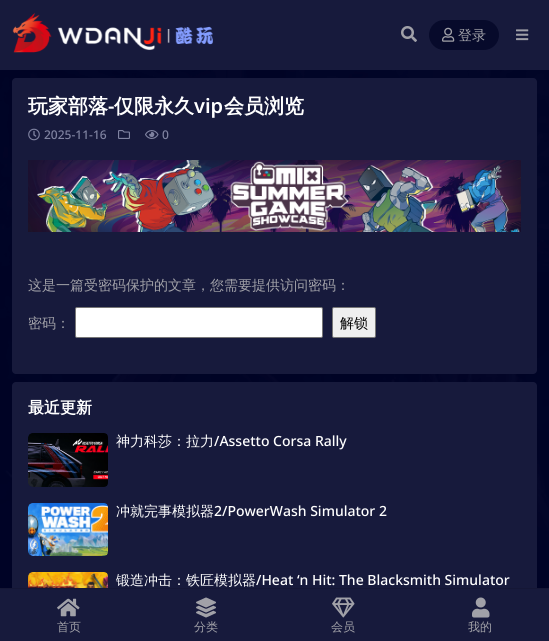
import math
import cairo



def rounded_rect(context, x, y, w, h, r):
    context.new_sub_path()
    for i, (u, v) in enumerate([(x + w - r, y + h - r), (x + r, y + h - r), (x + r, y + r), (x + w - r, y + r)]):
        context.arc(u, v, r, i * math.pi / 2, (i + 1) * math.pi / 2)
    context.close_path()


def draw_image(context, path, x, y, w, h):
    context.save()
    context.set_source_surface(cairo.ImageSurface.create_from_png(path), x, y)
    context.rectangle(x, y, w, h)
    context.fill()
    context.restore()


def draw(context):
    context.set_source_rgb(1, 1, 1)
    context.paint()
    draw_image(context, "images/1.png", 0, 70, 549, 518)
    context.set_source_rgb(23 / 255, 26 / 255, 60 / 255)
    context.rectangle(0, 0, 549, 70)
    context.fill()
    draw_image(context, "images/2.png", 12, 12, 201, 41)
    draw_image(context, "images/3.png", 401, 26, 16, 16)
    context.set_source_rgb(7 / 255, 10 / 255, 43 / 255)
    rounded_rect(context, 429, 20, 70, 30, 15)
    context.fill()
    draw_image(context, "images/4.png", 442, 27, 13, 15)
    draw_image(context, "images/5.png", 516, 29, 13, 12)
    context.set_source_rgb(23 / 255, 26 / 255, 60 / 255)
    rounded_rect(context, 12, 78, 525, 296, 4)
    context.fill()
    draw_image(context, "images/6.png", 28, 128, 12, 13)
    draw_image(context, "images/7.png", 118, 130, 12, 9)
    draw_image(context, "images/8.png", 145, 130, 14, 9)
    draw_image(context, "images/9.png", 28, 160, 493, 72)
    context.set_source_rgb(1, 1, 1)
    rounded_rect(context, 75.5, 307.5, 247, 30, 1.5)
    context.fill_preserve()
    context.set_source_rgb(118 / 255, 118 / 255, 118 / 255)
    context.set_line_width(1)
    context.stroke()
    context.set_source_rgb(239 / 255, 239 / 255, 239 / 255)
    rounded_rect(context, 332.5, 307.5, 43, 30, 1.5)
    context.fill_preserve()
    context.set_source_rgb(118 / 255, 118 / 255, 118 / 255)
    context.stroke()
    context.set_source_rgb(23 / 255, 26 / 255, 60 / 255)
    rounded_rect(context, 12, 382, 525, 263, 4)
    context.fill()
    draw_image(context, "images/10.png", 28, 433, 80, 54)
    draw_image(context, "images/11.png", 28, 503, 80, 53)
    draw_image(context, "images/12.png", 28, 572, 80, 16)
    context.rectangle(0, 588, 549, 53)
    context.fill()
    context.set_source_rgb(21 / 255, 23 / 255, 54 / 255)
    rounded_rect(context, 0, 588, 549, 1, 0.5)
    context.fill()
    draw_image(context, "images/13.png", 57, 598, 23, 19)
    draw_image(context, "images/14.png", 196, 597, 20, 21)
    draw_image(context, "images/15.png", 332, 597, 23, 21)
    draw_image(context, "images/16.png", 472, 597, 18, 21)
    context.select_font_face("WenQuanYi Zen Hei Medium")
    context.set_font_size(14)
    context.set_source_rgb(161 / 255, 161 / 255, 168 / 255)
    context.move_to(458, 40)
    context.show_text("登录")
    context.select_font_face("WenQuanYi Zen Hei", cairo.FontSlant.NORMAL, cairo.FontWeight.BOLD)
    context.set_font_size(20)
    context.set_source_rgb(1, 1, 1)
    context.move_to(28, 113)
    context.show_text("玩家部落")
    context.select_font_face("Noto Sans SemiBold")
    context.move_to(108, 113)
    context.show_text("-")
    context.select_font_face("WenQuanYi Zen Hei", cairo.FontSlant.NORMAL, cairo.FontWeight.BOLD)
    context.move_to(114, 113)
    context.show_text("仅限永久")
    context.select_font_face("Noto Sans SemiBold")
    context.move_to(194, 113)
    context.show_text("vip")
    context.select_font_face("WenQuanYi Zen Hei", cairo.FontSlant.NORMAL, cairo.FontWeight.BOLD)
    context.move_to(224, 113)
    context.show_text("会员浏览")
    context.select_font_face("Noto Sans Medium")
    context.set_font_size(12)
    context.set_source_rgb(128 / 255, 131 / 255, 161 / 255)
    context.move_to(44, 139)
    context.show_text("2025-11-16")
    context.move_to(162, 139)
    context.show_text("0")
    context.select_font_face("WenQuanYi Zen Hei Medium")
    context.set_font_size(14)
    context.set_source_rgb(161 / 255, 161 / 255, 168 / 255)
    context.move_to(28, 290)
    context.show_text("这是一篇受密码保护的文章，您需要提供访问密码：")
    context.move_to(28, 328)
    context.show_text("密码：")
    context.set_source_rgb(0, 0, 0)
    context.move_to(340, 328)
    context.show_text("解锁")
    context.select_font_face("WenQuanYi Zen Hei", cairo.FontSlant.NORMAL, cairo.FontWeight.BOLD)
    context.set_font_size(16)
    context.set_source_rgb(1, 1, 1)
    context.move_to(28, 413)
    context.show_text("最近更新")
    context.select_font_face("WenQuanYi Zen Hei Medium")
    context.set_font_size(14)
    context.move_to(116, 446)
    context.show_text("神力科莎：拉力")
    context.select_font_face("Noto Sans Medium")
    context.move_to(214, 446)
    context.show_text("/Assetto Corsa Rally")
    context.select_font_face("WenQuanYi Zen Hei Medium")
    context.move_to(116, 516)
    context.show_text("冲就完事模拟器")
    context.select_font_face("Noto Sans Medium")
    context.move_to(214, 516)
    context.show_text("2/PowerWash Simulator 2")
    context.select_font_face("WenQuanYi Zen Hei Medium")
    context.move_to(116, 585)
    context.show_text("锻造冲击：铁匠模拟器")
    context.select_font_face("Noto Sans Medium")
    context.move_to(256, 585)
    context.show_text("/Heat ‘n Hit: The Blacksmith Simulator")
    context.select_font_face("WenQuanYi Zen Hei Medium")
    context.set_font_size(12)
    context.set_source_rgb(161 / 255, 161 / 255, 168 / 255)
    context.move_to(57, 631)
    context.show_text("首页")
    context.move_to(194, 631)
    context.show_text("分类")
    context.move_to(331, 631)
    context.show_text("会员")
    context.move_to(468, 631)
    context.show_text("我的")


surface = cairo.ImageSurface(cairo.Format.RGB24, 549, 641)
context = cairo.Context(surface)
options = cairo.FontOptions()
options.set_hint_metrics(cairo.HintMetrics.OFF)
options.set_hint_style(cairo.HintStyle.NONE)
context.set_font_options(options)
context.set_miter_limit(4)
draw(context)
surface.write_to_png("out.png")
